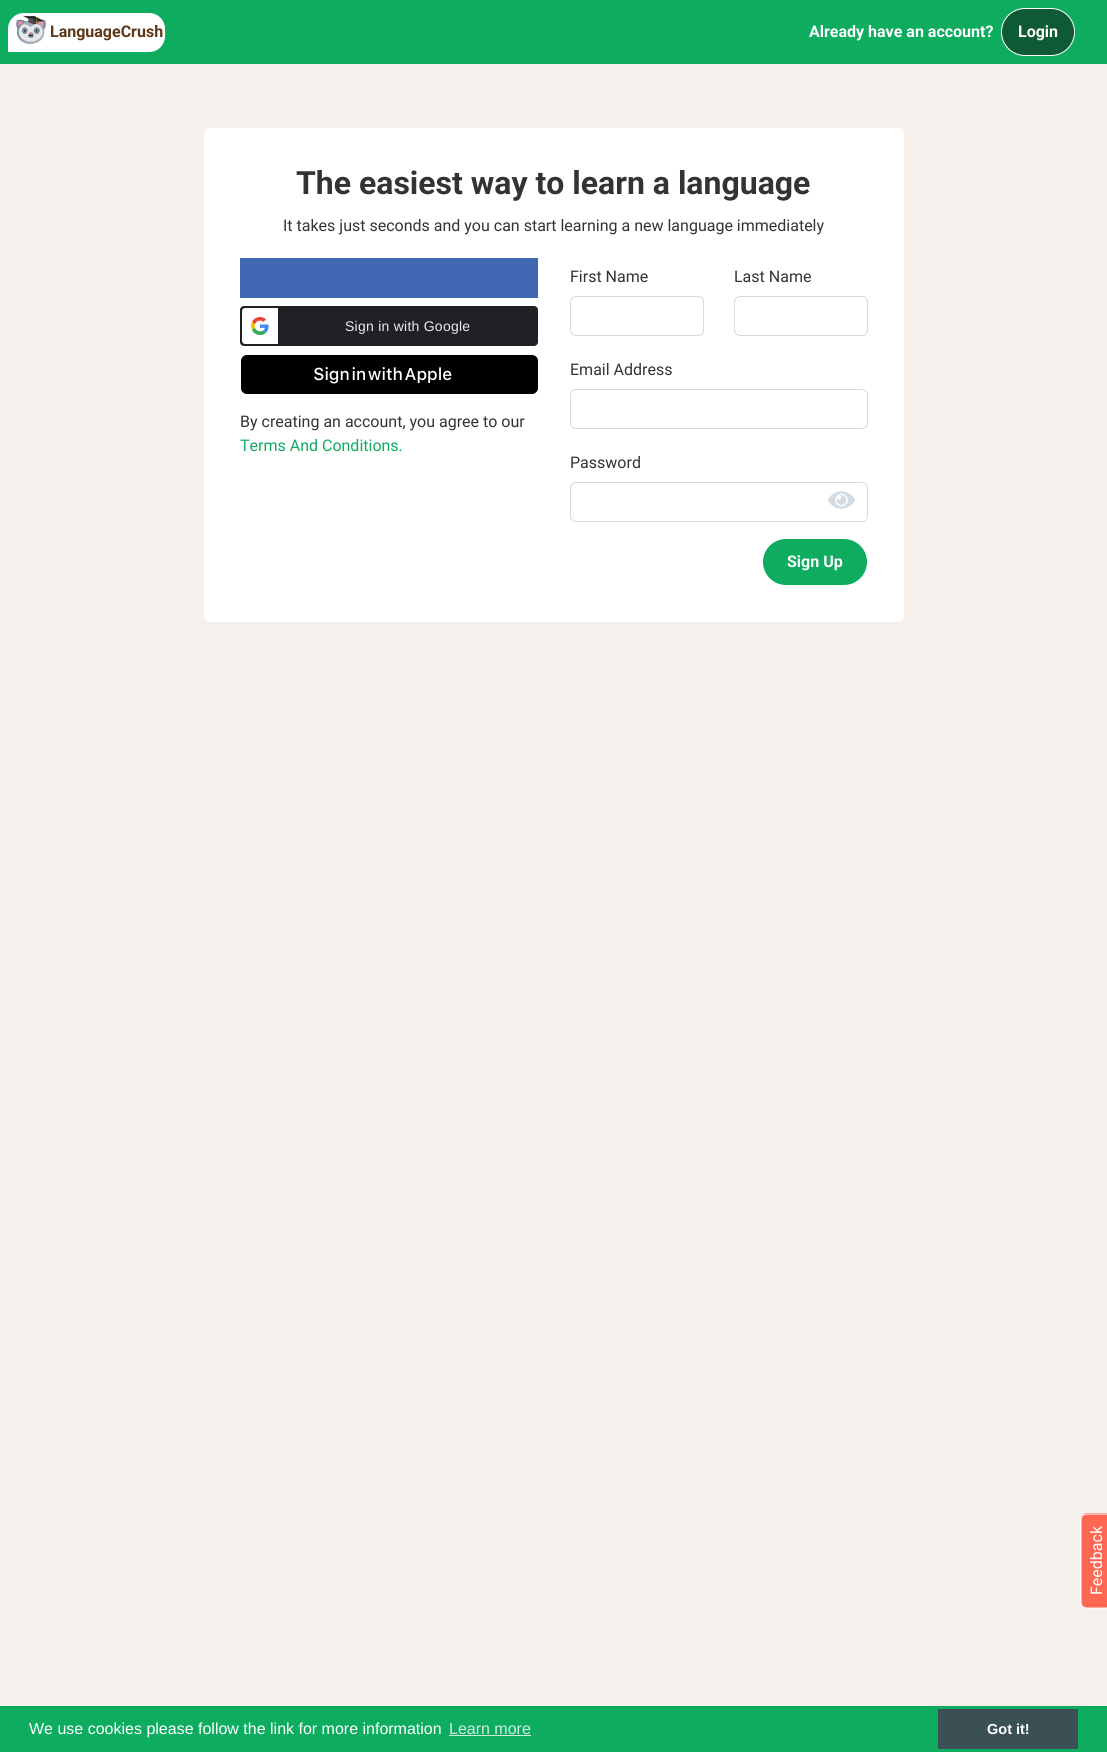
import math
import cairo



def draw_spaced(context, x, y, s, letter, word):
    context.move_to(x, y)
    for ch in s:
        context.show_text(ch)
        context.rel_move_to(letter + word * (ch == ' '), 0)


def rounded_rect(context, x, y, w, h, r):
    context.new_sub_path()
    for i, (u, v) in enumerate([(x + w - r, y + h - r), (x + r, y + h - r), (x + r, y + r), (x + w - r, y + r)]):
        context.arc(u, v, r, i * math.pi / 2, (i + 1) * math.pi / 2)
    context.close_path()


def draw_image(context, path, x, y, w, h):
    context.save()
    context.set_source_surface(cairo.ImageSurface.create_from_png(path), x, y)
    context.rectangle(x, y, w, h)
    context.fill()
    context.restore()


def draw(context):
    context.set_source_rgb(245 / 255, 240 / 255, 236 / 255)
    context.paint()
    context.set_source_rgb(13 / 255, 172 / 255, 95 / 255)
    context.rectangle(0, 0, 1107, 64)
    context.fill()
    context.set_source_rgb(1, 1, 1)
    context.new_path()
    context.move_to(24, 13)
    context.line_to(149, 13)
    context.curve_to(158, 13, 165, 20, 165, 29)
    context.line_to(165, 36)
    context.curve_to(165, 45, 158, 52, 149, 52)
    context.line_to(8, 52)
    context.line_to(8, 29)
    context.curve_to(8, 20, 15, 13, 24, 13)
    context.close_path()
    context.fill()
    draw_image(context, "images/1.png", 16, 16, 30, 28)
    context.set_source_rgb(13 / 255, 90 / 255, 53 / 255)
    rounded_rect(context, 1001.5, 8.5, 73, 47, 23.5)
    context.fill_preserve()
    context.set_source_rgb(1, 1, 1)
    context.set_line_width(1)
    context.stroke()
    rounded_rect(context, 204, 128, 700, 494, 6)
    context.fill()
    context.set_source_rgb(66 / 255, 103 / 255, 178 / 255)
    context.rectangle(240, 258, 298, 40)
    context.fill()
    context.set_source_rgb(32 / 255, 33 / 255, 36 / 255)
    rounded_rect(context, 240, 306, 298, 40, 4)
    context.fill()
    context.set_source_rgb(1, 1, 1)
    context.new_path()
    context.move_to(245, 308)
    context.line_to(278, 308)
    context.line_to(278, 344)
    context.line_to(245, 344)
    context.curve_to(243.5, 344, 242, 342.5, 242, 341)
    context.line_to(242, 311)
    context.curve_to(242, 309.5, 243.5, 308, 245, 308)
    context.close_path()
    context.fill()
    draw_image(context, "images/2.png", 251, 317, 18, 18)
    context.set_source_rgb(0, 0, 0)
    rounded_rect(context, 241.5, 355.5, 296, 38, 5.5)
    context.fill_preserve()
    context.stroke()
    rounded_rect(context, 570.5, 296.5, 133, 39, 5.5)
    context.set_source_rgb(210 / 255, 218 / 255, 226 / 255)
    context.stroke()
    rounded_rect(context, 734.5, 296.5, 133, 39, 5.5)
    context.stroke()
    rounded_rect(context, 570.5, 389.5, 297, 39, 5.5)
    context.stroke()
    context.new_path()
    context.move_to(576, 482.5)
    context.line_to(817.5, 482.5)
    context.line_to(817.5, 521.5)
    context.line_to(576, 521.5)
    context.curve_to(573, 521.5, 570.5, 519, 570.5, 516)
    context.line_to(570.5, 488)
    context.curve_to(570.5, 485, 573, 482.5, 576, 482.5)
    context.close_path()
    context.stroke()
    context.set_source_rgb(1, 1, 1)
    context.new_path()
    context.move_to(817, 482)
    context.line_to(862, 482)
    context.curve_to(865.5, 482, 868, 484.5, 868, 488)
    context.line_to(868, 516)
    context.curve_to(868, 519.5, 865.5, 522, 862, 522)
    context.line_to(817, 522)
    context.close_path()
    context.fill()
    context.set_source_rgb(210 / 255, 218 / 255, 226 / 255)
    context.set_fill_rule(cairo.FillRule.EVEN_ODD)
    context.new_path()
    context.move_to(817, 482)
    context.line_to(862, 482)
    context.curve_to(865, 482, 868, 485, 868, 488)
    context.line_to(868, 516)
    context.curve_to(868, 519, 865, 522, 862, 522)
    context.line_to(817, 522)
    context.close_path()
    context.move_to(817, 483)
    context.line_to(862, 483)
    context.curve_to(865, 483, 867, 485, 867, 488)
    context.line_to(867, 516)
    context.curve_to(867, 519, 865, 521, 862, 521)
    context.line_to(817, 521)
    context.close_path()
    context.fill()
    draw_image(context, "images/3.png", 828, 491, 27, 18)
    context.set_source_rgb(13 / 255, 172 / 255, 95 / 255)
    rounded_rect(context, 762.5, 538.5, 105, 47, 23.5)
    context.fill_preserve()
    context.set_source_rgb(1, 1, 1)
    context.stroke()
    context.set_source_rgb(1, 103 / 255, 83 / 255)
    context.set_fill_rule(cairo.FillRule.WINDING)
    context.new_path()
    context.move_to(1081, 1602)
    context.line_to(1081, 1519)
    context.curve_to(1081, 1516, 1083, 1513, 1087, 1513)
    context.line_to(1107, 1513)
    context.curve_to(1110, 1513, 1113, 1516, 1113, 1519)
    context.line_to(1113, 1602)
    context.curve_to(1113, 1606, 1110, 1608, 1107, 1608)
    context.line_to(1087, 1608)
    context.curve_to(1083, 1608, 1081, 1606, 1081, 1602)
    context.close_path()
    context.fill()
    context.new_path()
    context.move_to(1081, 1602.5)
    context.line_to(1081, 1519.5)
    context.curve_to(1081, 1516.5, 1083.5, 1514, 1086.5, 1514)
    context.line_to(1106.5, 1514)
    context.curve_to(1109.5, 1514, 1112, 1516.5, 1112, 1519.5)
    context.line_to(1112, 1602.5)
    context.curve_to(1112, 1605.5, 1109.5, 1608, 1106.5, 1608)
    context.line_to(1086.5, 1608)
    context.curve_to(1083.5, 1608, 1081, 1605.5, 1081, 1602.5)
    context.close_path()
    context.set_source_rgb(1, 1, 1)
    context.stroke()
    context.set_source_rgb(13 / 255, 172 / 255, 95 / 255)
    context.rectangle(0, 1706, 1107, 46)
    context.fill()
    context.set_source_rgb(207 / 255, 238 / 255, 223 / 255)
    context.rectangle(449, 1735, 82, 1)
    context.fill()
    context.set_source_rgb(59 / 255, 80 / 255, 84 / 255)
    context.rectangle(938, 1709, 140, 40)
    context.fill()
    context.select_font_face("Roboto", cairo.FontSlant.NORMAL, cairo.FontWeight.BOLD)
    context.set_font_size(16)
    context.set_source_rgb(93 / 255, 55 / 255, 23 / 255)
    context.move_to(50, 37)
    context.show_text("LanguageCrush")
    context.set_source_rgb(1, 1, 1)
    context.move_to(809, 37)
    context.show_text("Already have an account?")
    context.move_to(1018, 37)
    context.show_text("Login")
    context.set_font_size(32)
    context.set_source_rgb(51 / 255, 51 / 255, 51 / 255)
    context.move_to(296, 194)
    context.show_text("The easiest way to learn a language")
    context.select_font_face("Roboto")
    context.set_font_size(16)
    context.move_to(283, 231)
    context.show_text("It takes just seconds and you can start learning a new language immediately")
    context.select_font_face("Liberation Sans")
    context.set_font_size(14)
    context.set_source_rgb(232 / 255, 234 / 255, 237 / 255)
    draw_spaced(context, 345, 331, "Sign in with Google", 0.25, 0)
    context.select_font_face("SF Pro Text Medium")
    context.set_font_size(17.1)
    context.set_source_rgb(1, 1, 1)
    draw_spaced(context, 309, 380, " Sign in with Apple", 0, -3)
    context.select_font_face("Roboto")
    context.set_font_size(16)
    context.set_source_rgb(51 / 255, 51 / 255, 51 / 255)
    context.move_to(240, 427)
    context.show_text("By creating an account, you agree to our")
    context.set_source_rgb(13 / 255, 172 / 255, 95 / 255)
    context.move_to(240, 451)
    context.show_text("Terms And Conditions.")
    context.set_source_rgb(51 / 255, 51 / 255, 51 / 255)
    context.move_to(570, 282)
    context.show_text("First Name")
    context.move_to(734, 282)
    context.show_text("Last Name")
    context.move_to(570, 375)
    context.show_text("Email Address")
    context.move_to(570, 468)
    context.show_text("Password")
    context.select_font_face("Roboto", cairo.FontSlant.NORMAL, cairo.FontWeight.BOLD)
    context.set_source_rgb(1, 1, 1)
    context.move_to(787, 567)
    context.show_text("Sign Up")
    context.select_font_face("Roboto")
    context.save()
    context.translate(1102, 1595)
    context.rotate(-90 * math.pi / 180)
    context.move_to(0, 0)
    context.show_text("Feedback")
    context.restore()
    context.select_font_face("Liberation Sans")
    context.move_to(29, 1734)
    context.show_text("We use cookies please follow the link for more information")
    context.set_source_rgb(207 / 255, 238 / 255, 223 / 255)
    context.move_to(449, 1734)
    context.show_text("Learn more")
    context.select_font_face("Liberation Sans", cairo.FontSlant.NORMAL, cairo.FontWeight.BOLD)
    context.set_font_size(14.5)
    context.set_source_rgb(1, 1, 1)
    context.move_to(987, 1734)
    context.show_text("Got it!")


surface = cairo.ImageSurface(cairo.Format.RGB24, 1107, 1752)
context = cairo.Context(surface)
options = cairo.FontOptions()
options.set_hint_metrics(cairo.HintMetrics.OFF)
options.set_hint_style(cairo.HintStyle.NONE)
context.set_font_options(options)
context.set_miter_limit(4)
draw(context)
surface.write_to_png("out.png")
